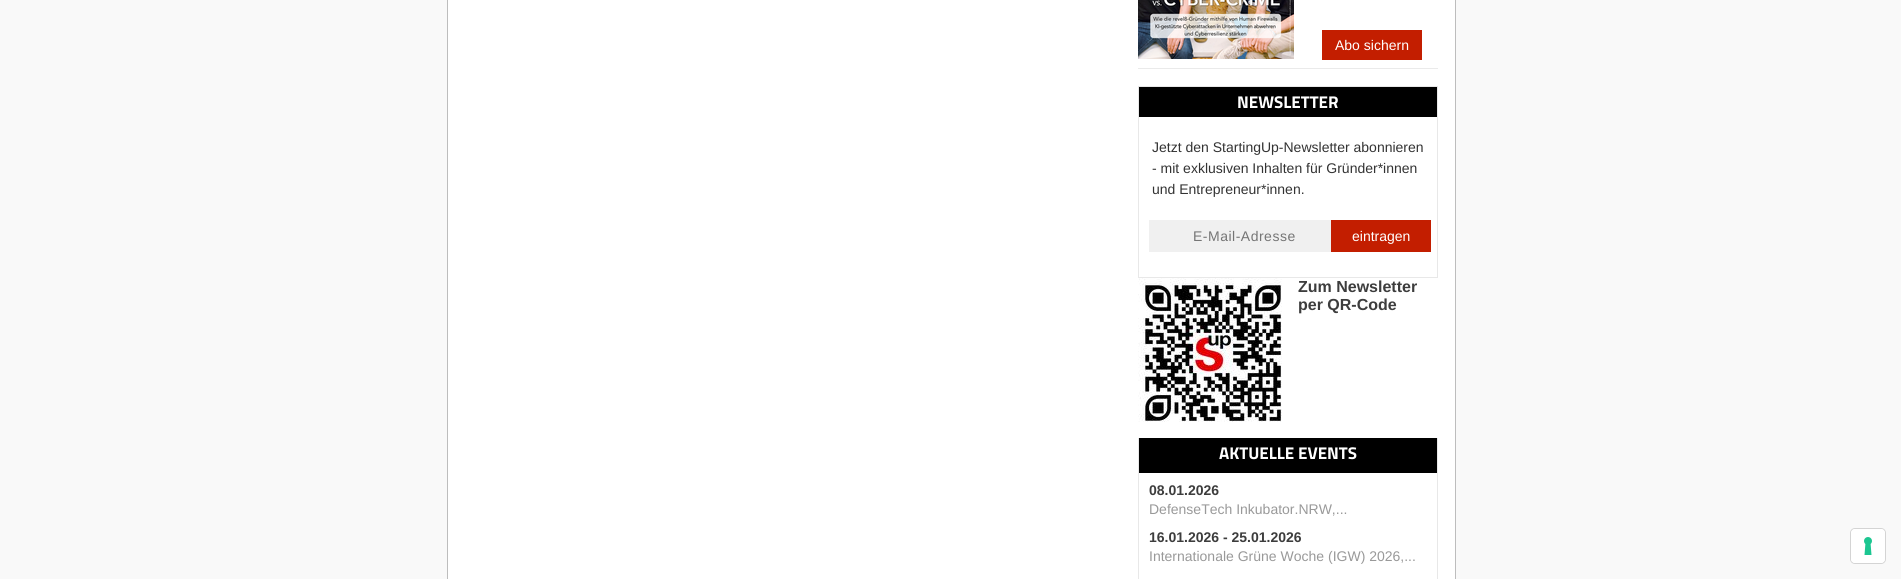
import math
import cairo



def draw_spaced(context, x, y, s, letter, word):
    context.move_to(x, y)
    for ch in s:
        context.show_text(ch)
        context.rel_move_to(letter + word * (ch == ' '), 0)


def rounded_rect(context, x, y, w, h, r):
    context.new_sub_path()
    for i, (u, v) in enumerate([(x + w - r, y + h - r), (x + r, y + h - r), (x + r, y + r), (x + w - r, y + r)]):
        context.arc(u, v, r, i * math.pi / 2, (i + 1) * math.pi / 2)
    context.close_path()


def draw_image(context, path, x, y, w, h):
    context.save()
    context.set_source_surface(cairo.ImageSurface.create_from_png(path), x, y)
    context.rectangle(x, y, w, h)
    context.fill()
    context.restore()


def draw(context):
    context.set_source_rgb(249 / 255, 249 / 255, 249 / 255)
    context.paint()
    context.set_source_rgb(1, 1, 1)
    context.rectangle(448, 0, 1007, 579)
    context.fill()
    context.set_source_rgb(189 / 255, 189 / 255, 189 / 255)
    context.rectangle(1455, 0, 1, 579)
    context.fill()
    context.rectangle(447, 0, 1, 579)
    context.fill()
    context.set_source_rgb(234 / 255, 234 / 255, 234 / 255)
    context.rectangle(1138, 68, 300, 1)
    context.fill()
    draw_image(context, "images/1.png", 1138, 0, 156, 59)
    context.set_source_rgb(195 / 255, 30 / 255, 0)
    context.rectangle(1322, 30, 100, 30)
    context.fill()
    context.rectangle(1138.5, 86.5, 299, 191)
    context.set_source_rgb(232 / 255, 232 / 255, 232 / 255)
    context.set_line_width(1)
    context.stroke()
    context.set_source_rgb(0, 0, 0)
    context.rectangle(1139, 87, 298, 30)
    context.fill()
    context.set_source_rgb(240 / 255, 240 / 255, 240 / 255)
    context.rectangle(1149, 220, 182, 32)
    context.fill()
    context.set_source_rgb(195 / 255, 30 / 255, 0)
    context.rectangle(1331, 220, 100, 32)
    context.fill()
    draw_image(context, "images/2.png", 1138, 278, 144, 144)
    context.set_source_rgb(232 / 255, 232 / 255, 232 / 255)
    context.rectangle(1437, 438, 1, 141)
    context.fill()
    context.rectangle(1138, 438, 1, 141)
    context.fill()
    context.set_source_rgb(0, 0, 0)
    context.rectangle(1139, 438, 298, 35)
    context.fill()
    rounded_rect(context, 1850.5, 528.5, 35, 35, 4.5)
    context.set_source_rgb(212 / 255, 212 / 255, 212 / 255)
    context.stroke()
    context.set_source_rgb(1, 1, 1)
    rounded_rect(context, 1851, 529, 34, 34, 4)
    context.fill()
    draw_image(context, "images/3.png", 1864, 537, 8, 18)
    context.select_font_face("Liberation Sans")
    context.set_font_size(14)
    context.move_to(1335, 50)
    context.show_text("Abo sichern")
    context.select_font_face("Titillium Web", cairo.FontSlant.NORMAL, cairo.FontWeight.BOLD)
    context.set_font_size(17)
    context.move_to(1237, 108)
    context.show_text("NEWSLETTER")
    context.select_font_face("Liberation Sans")
    context.set_font_size(14)
    context.set_source_rgb(51 / 255, 51 / 255, 51 / 255)
    context.move_to(1152, 152)
    context.show_text("Jetzt den StartingUp-Newsletter abonnieren")
    context.move_to(1152, 173)
    context.show_text("- mit exklusiven Inhalten für Gründer*innen")
    context.move_to(1152, 194)
    context.show_text("und Entrepreneur*innen.")
    context.set_source_rgb(117 / 255, 117 / 255, 117 / 255)
    draw_spaced(context, 1193, 241, "E-Mail-Adresse", 0.5, 0)
    context.set_source_rgb(1, 1, 1)
    context.move_to(1352, 241)
    context.show_text("eintragen")
    context.select_font_face("Liberation Sans", cairo.FontSlant.NORMAL, cairo.FontWeight.BOLD)
    context.set_font_size(16)
    context.set_source_rgb(61 / 255, 61 / 255, 61 / 255)
    context.move_to(1298, 292)
    context.show_text("Zum Newsletter")
    context.move_to(1298, 310)
    context.show_text("per QR-Code")
    context.select_font_face("Titillium Web", cairo.FontSlant.NORMAL, cairo.FontWeight.BOLD)
    context.set_font_size(17)
    context.set_source_rgb(1, 1, 1)
    context.move_to(1219, 459)
    context.show_text("AKTUELLE EVENTS")
    context.select_font_face("Liberation Sans", cairo.FontSlant.NORMAL, cairo.FontWeight.BOLD)
    context.set_font_size(14)
    context.set_source_rgb(61 / 255, 61 / 255, 61 / 255)
    context.move_to(1149, 495)
    context.show_text("08.01.2026")
    context.select_font_face("Liberation Sans")
    context.set_source_rgb(153 / 255, 153 / 255, 153 / 255)
    context.move_to(1149, 514)
    context.show_text("DefenseTech Inkubator.NRW,...")
    context.select_font_face("Liberation Sans", cairo.FontSlant.NORMAL, cairo.FontWeight.BOLD)
    context.set_source_rgb(61 / 255, 61 / 255, 61 / 255)
    context.move_to(1149, 542)
    context.show_text("16.01.2026 - 25.01.2026")
    context.select_font_face("Liberation Sans")
    context.set_source_rgb(153 / 255, 153 / 255, 153 / 255)
    context.move_to(1149, 561)
    context.show_text("Internationale Grüne Woche (IGW) 2026,...")


surface = cairo.ImageSurface(cairo.Format.RGB24, 1901, 579)
context = cairo.Context(surface)
options = cairo.FontOptions()
options.set_hint_metrics(cairo.HintMetrics.OFF)
options.set_hint_style(cairo.HintStyle.NONE)
context.set_font_options(options)
context.set_miter_limit(4)
draw(context)
surface.write_to_png("out.png")
